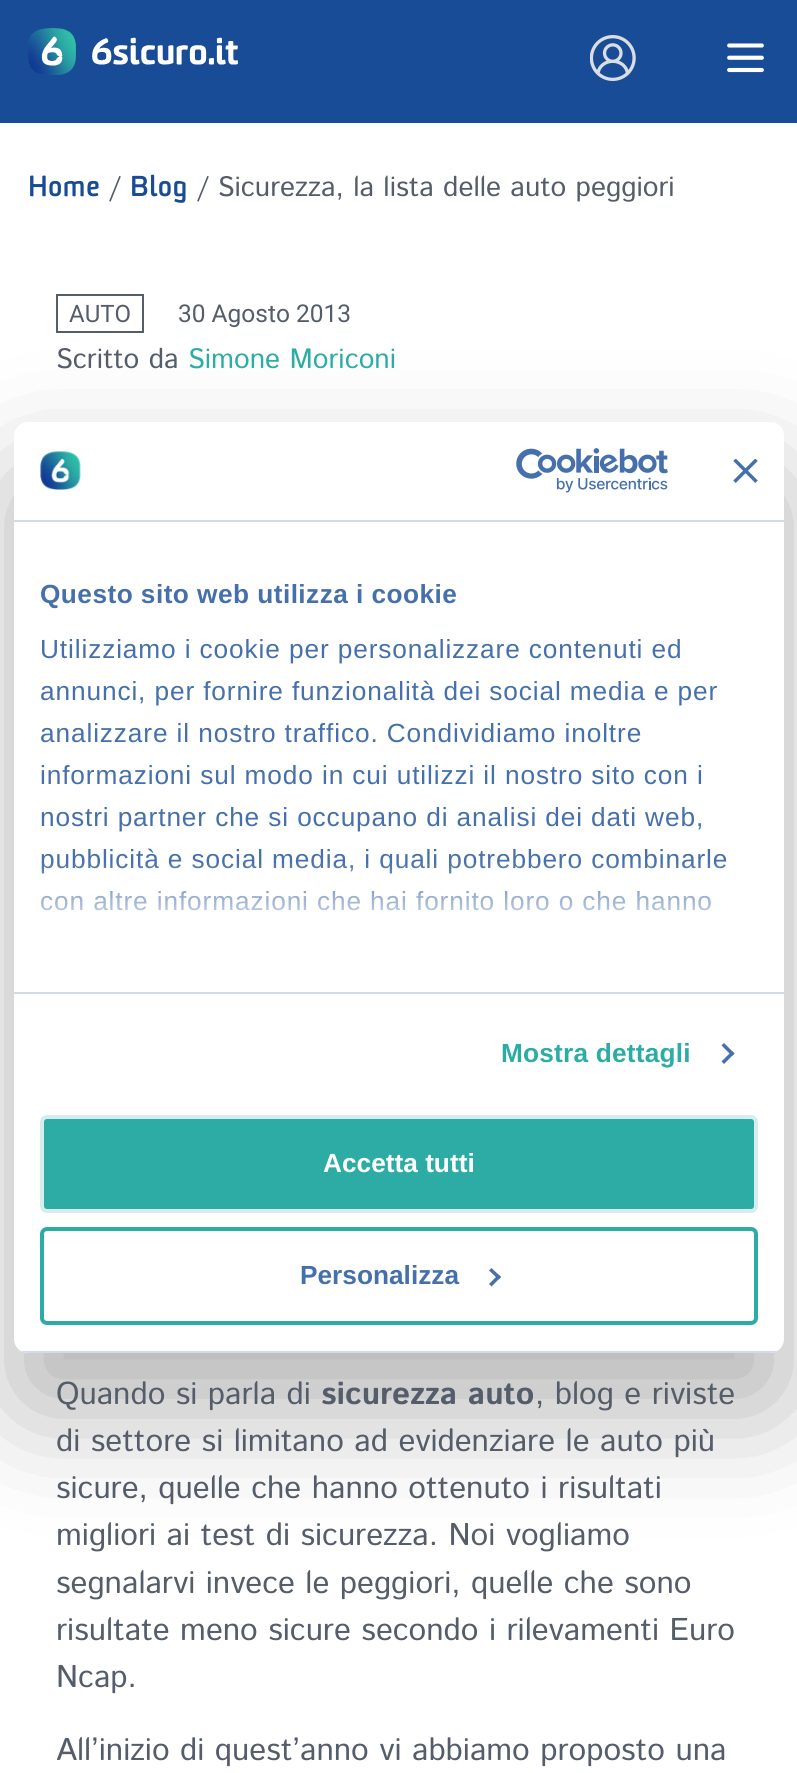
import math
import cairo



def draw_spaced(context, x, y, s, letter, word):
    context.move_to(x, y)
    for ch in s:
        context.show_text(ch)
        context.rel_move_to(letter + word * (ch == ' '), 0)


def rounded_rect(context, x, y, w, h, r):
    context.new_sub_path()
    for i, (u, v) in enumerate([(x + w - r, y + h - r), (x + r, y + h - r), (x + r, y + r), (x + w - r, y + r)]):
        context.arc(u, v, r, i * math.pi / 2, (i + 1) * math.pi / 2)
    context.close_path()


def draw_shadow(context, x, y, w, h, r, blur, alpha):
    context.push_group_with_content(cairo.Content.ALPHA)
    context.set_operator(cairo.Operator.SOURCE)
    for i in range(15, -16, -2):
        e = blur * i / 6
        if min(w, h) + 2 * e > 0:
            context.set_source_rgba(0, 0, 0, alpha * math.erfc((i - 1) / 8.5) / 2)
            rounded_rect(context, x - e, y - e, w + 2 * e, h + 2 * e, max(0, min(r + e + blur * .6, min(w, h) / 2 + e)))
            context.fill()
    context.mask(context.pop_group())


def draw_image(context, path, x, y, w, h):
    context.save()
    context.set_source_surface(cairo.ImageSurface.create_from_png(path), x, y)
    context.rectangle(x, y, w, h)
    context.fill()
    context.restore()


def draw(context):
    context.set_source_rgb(1, 1, 1)
    context.paint()
    context.set_source_rgb(24 / 255, 76 / 255, 150 / 255)
    context.rectangle(0, 0, 797, 123)
    context.fill()
    draw_image(context, "images/1.png", 28, 28, 210, 47)
    draw_image(context, "images/2.png", 590, 35, 46, 46)
    draw_image(context, "images/3.png", 727, 43, 37, 30)
    context.rectangle(57, 295, 86, 37)
    context.set_source_rgb(84 / 255, 93 / 255, 105 / 255)
    context.stroke()
    context.set_source_rgb(0, 0, 0)
    draw_shadow(context, 14, 478, 770, 931, 14, 59.5, 0.3)
    context.set_source_rgb(1, 1, 1)
    rounded_rect(context, 14, 422, 770, 931, 14)
    context.fill()
    context.set_source_rgb(209 / 255, 219 / 255, 234 / 255)
    context.rectangle(14, 520, 770, 2)
    context.fill()
    draw_image(context, "images/4.png", 40, 451, 41, 39)
    draw_image(context, "images/5.png", 516, 448, 152, 45)
    draw_image(context, "images/6.png", 733, 459, 25, 24)
    context.rectangle(14, 992, 770, 2)
    context.fill()
    context.set_source_rgb(70 / 255, 112 / 255, 171 / 255)
    context.new_path()
    context.move_to(724, 1043)
    context.line_to(734.5, 1053.5)
    context.line_to(732, 1056)
    context.line_to(721.5, 1045.5)
    context.close_path()
    context.fill()
    context.new_path()
    context.move_to(732, 1051)
    context.line_to(734.5, 1053.5)
    context.line_to(724, 1064)
    context.line_to(721.5, 1061.5)
    context.close_path()
    context.fill()
    context.save()
    rounded_rect(context, 14, 422, 770, 931, 14)
    context.clip()
    context.set_source_rgb(209 / 255, 219 / 255, 234 / 255)
    context.rectangle(14, 1351, 770, 2)
    context.fill()
    context.restore()
    context.set_source_rgb(45 / 255, 172 / 255, 166 / 255)
    rounded_rect(context, 42, 1117, 714, 94, 5)
    context.fill_preserve()
    context.set_source_rgb(213 / 255, 238 / 255, 237 / 255)
    context.set_line_width(4)
    context.stroke()
    rounded_rect(context, 42, 1229, 714, 94, 5)
    context.set_source_rgb(45 / 255, 172 / 255, 166 / 255)
    context.stroke()
    context.set_source_rgb(70 / 255, 112 / 255, 171 / 255)
    context.new_path()
    context.move_to(491.5, 1268)
    context.line_to(501, 1277)
    context.line_to(498.5, 1279.5)
    context.line_to(489, 1270.5)
    context.close_path()
    context.fill()
    context.new_path()
    context.move_to(498.5, 1274.5)
    context.line_to(501, 1277)
    context.line_to(491.5, 1286.5)
    context.line_to(489, 1284)
    context.close_path()
    context.fill()
    context.select_font_face("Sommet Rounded", cairo.FontSlant.NORMAL, cairo.FontWeight.BOLD)
    context.set_font_size(28)
    context.set_source_rgb(24 / 255, 76 / 255, 150 / 255)
    context.move_to(28, 196)
    context.show_text("Home")
    context.select_font_face("Istok Web")
    context.set_source_rgb(84 / 255, 93 / 255, 105 / 255)
    context.move_to(109, 196)
    context.show_text("/")
    context.select_font_face("Sommet Rounded", cairo.FontSlant.NORMAL, cairo.FontWeight.BOLD)
    context.set_source_rgb(24 / 255, 76 / 255, 150 / 255)
    context.move_to(130, 196)
    context.show_text("Blog")
    context.select_font_face("Istok Web")
    context.set_source_rgb(84 / 255, 93 / 255, 105 / 255)
    context.move_to(197, 196)
    context.show_text("/ Sicurezza, la lista delle auto peggiori")
    context.select_font_face("Roboto")
    context.set_font_size(24)
    context.move_to(69, 322)
    context.show_text("AUTO")
    context.set_font_size(24.5)
    context.move_to(178, 322)
    context.show_text("30 Agosto 2013")
    context.select_font_face("Istok Web")
    context.set_font_size(28)
    context.move_to(56, 368)
    context.show_text("Scritto da")
    context.set_source_rgb(45 / 255, 172 / 255, 166 / 255)
    context.move_to(188, 368)
    context.show_text("Simone Moriconi")
    context.set_font_size(31.5)
    context.set_source_rgb(84 / 255, 93 / 255, 105 / 255)
    context.move_to(56, 1404)
    context.show_text("Quando si parla di")
    context.select_font_face("Istok Web", cairo.FontSlant.NORMAL, cairo.FontWeight.BOLD)
    context.move_to(321, 1404)
    context.show_text("sicurezza auto")
    context.select_font_face("Istok Web")
    context.move_to(535, 1404)
    context.show_text(", blog e riviste")
    context.move_to(56, 1451)
    context.show_text("di settore si limitano ad evidenziare le auto più")
    context.move_to(56, 1498)
    context.show_text("sicure, quelle che hanno ottenuto i risultati")
    context.move_to(56, 1545)
    context.show_text("migliori ai test di sicurezza. Noi vogliamo")
    context.move_to(56, 1593)
    context.show_text("segnalarvi invece le peggiori, quelle che sono")
    context.move_to(56, 1640)
    context.show_text("risultate meno sicure secondo i rilevamenti Euro")
    context.move_to(56, 1687)
    context.show_text("Ncap.")
    context.move_to(56, 1760)
    context.show_text("All’inizio di quest’anno vi abbiamo proposto una")
    context.select_font_face("Liberation Sans", cairo.FontSlant.NORMAL, cairo.FontWeight.BOLD)
    context.set_font_size(26.25)
    context.set_source_rgb(70 / 255, 112 / 255, 171 / 255)
    draw_spaced(context, 40, 603, "Questo sito web utilizza i cookie", 0.45, 0)
    context.select_font_face("Liberation Sans")
    draw_spaced(context, 40, 658, "Utilizziamo i cookie per personalizzare contenuti ed", 0.88, 0)
    draw_spaced(context, 40, 700, "annunci, per fornire funzionalità dei social media e per", 0.88, 0)
    draw_spaced(context, 40, 742, "analizzare il nostro traffico. Condividiamo inoltre", 0.88, 0)
    draw_spaced(context, 40, 784, "informazioni sul modo in cui utilizzi il nostro sito con i", 0.88, 0)
    draw_spaced(context, 40, 826, "nostri partner che si occupano di analisi dei dati web,", 0.88, 0)
    draw_spaced(context, 40, 868, "pubblicità e social media, i quali potrebbero combinarle", 0.88, 0)
    draw_spaced(context, 40, 910, "con altre informazioni che hai fornito loro o che hanno", 0.88, 0)
    gradient = cairo.LinearGradient(388, 992, 388, 861)
    gradient.add_color_stop_rgba(0, 1, 1, 1, 1)
    gradient.add_color_stop_rgba(0.5, 1, 1, 1, 0.8)
    gradient.add_color_stop_rgba(1, 1, 1, 1, 0)
    context.set_source(gradient)
    context.rectangle(41, 863, 685, 48)
    context.fill()
    context.select_font_face("Liberation Sans", cairo.FontSlant.NORMAL, cairo.FontWeight.BOLD)
    context.set_source_rgb(45 / 255, 172 / 255, 166 / 255)
    draw_spaced(context, 501, 1062, "Mostra dettagli", 0.2, 0)
    context.set_source_rgb(1, 1, 1)
    context.move_to(323, 1172)
    context.show_text("Accetta tutti")
    context.set_source_rgb(70 / 255, 112 / 255, 171 / 255)
    context.move_to(300, 1284)
    context.show_text("Personalizza")


surface = cairo.ImageSurface(cairo.Format.RGB24, 797, 1773)
context = cairo.Context(surface)
options = cairo.FontOptions()
options.set_hint_metrics(cairo.HintMetrics.OFF)
options.set_hint_style(cairo.HintStyle.NONE)
context.set_font_options(options)
context.set_miter_limit(4)
draw(context)
surface.write_to_png("out.png")
